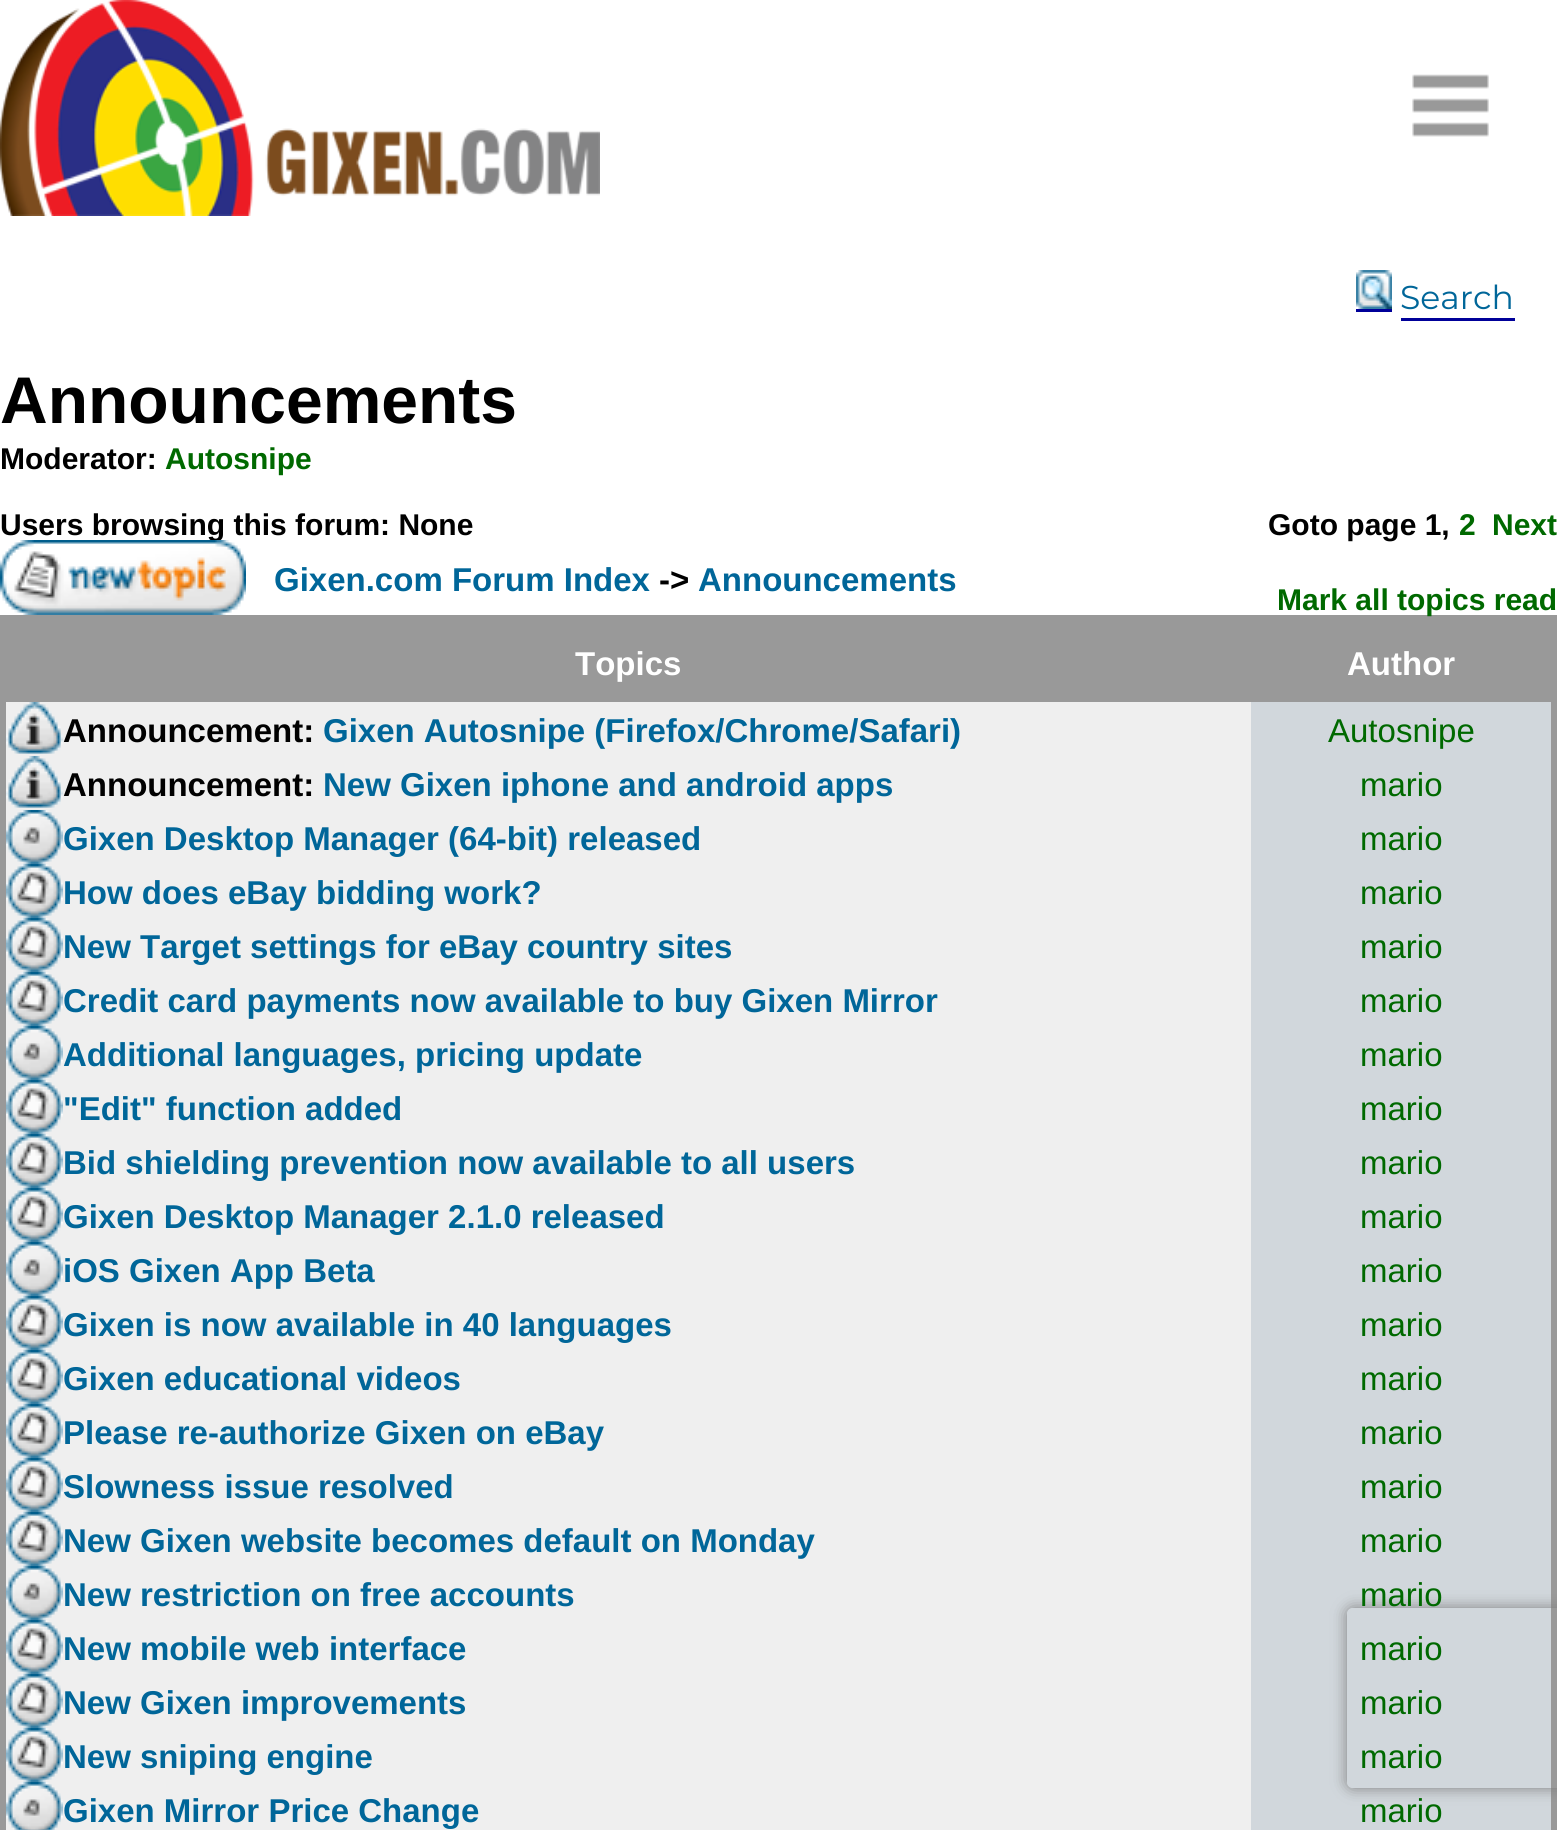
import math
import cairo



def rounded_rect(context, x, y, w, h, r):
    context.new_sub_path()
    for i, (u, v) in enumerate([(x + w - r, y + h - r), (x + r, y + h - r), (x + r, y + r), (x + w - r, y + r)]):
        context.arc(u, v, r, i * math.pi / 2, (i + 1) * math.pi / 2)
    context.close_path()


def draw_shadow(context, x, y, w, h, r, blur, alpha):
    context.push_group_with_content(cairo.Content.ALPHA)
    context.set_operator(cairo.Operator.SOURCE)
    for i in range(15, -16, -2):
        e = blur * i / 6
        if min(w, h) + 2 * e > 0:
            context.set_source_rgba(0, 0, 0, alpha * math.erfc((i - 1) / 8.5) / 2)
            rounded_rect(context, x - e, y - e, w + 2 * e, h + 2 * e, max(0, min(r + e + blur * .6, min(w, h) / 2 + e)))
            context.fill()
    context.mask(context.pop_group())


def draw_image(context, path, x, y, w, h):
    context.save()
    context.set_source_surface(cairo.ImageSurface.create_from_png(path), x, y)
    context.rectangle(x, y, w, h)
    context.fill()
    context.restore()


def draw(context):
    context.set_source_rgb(1, 1, 1)
    context.paint()
    draw_image(context, "images/1.png", 0, 0, 600, 216)
    context.set_source_rgb(153 / 255, 153 / 255, 153 / 255)
    context.rectangle(1412, 74, 77, 63)
    context.fill()
    draw_image(context, "images/2.png", 1347, 0, 210, 165)
    draw_image(context, "images/3.png", 1356, 270, 36, 39)
    context.set_source_rgb(0, 0, 153 / 255)
    context.rectangle(1356, 309, 36, 3)
    context.fill()
    context.rectangle(1401, 318, 114, 3)
    context.fill()
    context.set_source_rgb(153 / 255, 153 / 255, 153 / 255)
    context.rectangle(0, 615, 1557, 6)
    context.fill()
    context.rectangle(1551, 615, 6, 1215)
    context.fill()
    context.rectangle(0, 615, 6, 1215)
    context.fill()
    context.rectangle(6, 621, 1545, 81)
    context.fill()
    context.set_source_rgb(239 / 255, 239 / 255, 239 / 255)
    context.rectangle(6, 702, 1245, 54)
    context.fill()
    draw_image(context, "images/5.png", 6, 702, 57, 52)
    context.set_source_rgb(209 / 255, 215 / 255, 220 / 255)
    context.rectangle(1251, 702, 300, 1128)
    context.fill()
    context.set_source_rgb(239 / 255, 239 / 255, 239 / 255)
    context.rectangle(6, 756, 1245, 54)
    context.fill()
    draw_image(context, "images/5.png", 6, 756, 57, 52)
    context.rectangle(6, 810, 1245, 54)
    context.fill()
    draw_image(context, "images/6.png", 6, 810, 57, 54)
    context.rectangle(6, 864, 1245, 54)
    context.fill()
    draw_image(context, "images/7.png", 6, 864, 57, 54)
    context.rectangle(6, 918, 1245, 54)
    context.fill()
    draw_image(context, "images/7.png", 6, 918, 57, 54)
    context.rectangle(6, 972, 1245, 54)
    context.fill()
    draw_image(context, "images/7.png", 6, 972, 57, 54)
    context.rectangle(6, 1026, 1245, 54)
    context.fill()
    draw_image(context, "images/6.png", 6, 1026, 57, 54)
    context.rectangle(6, 1080, 1245, 54)
    context.fill()
    draw_image(context, "images/7.png", 6, 1080, 57, 54)
    context.rectangle(6, 1134, 1245, 54)
    context.fill()
    draw_image(context, "images/7.png", 6, 1134, 57, 54)
    context.rectangle(6, 1188, 1245, 54)
    context.fill()
    draw_image(context, "images/7.png", 6, 1188, 57, 54)
    context.rectangle(6, 1242, 1245, 54)
    context.fill()
    draw_image(context, "images/6.png", 6, 1242, 57, 54)
    context.rectangle(6, 1296, 1245, 54)
    context.fill()
    draw_image(context, "images/7.png", 6, 1296, 57, 54)
    context.rectangle(6, 1350, 1245, 54)
    context.fill()
    draw_image(context, "images/7.png", 6, 1350, 57, 54)
    context.rectangle(6, 1404, 1245, 54)
    context.fill()
    draw_image(context, "images/8.png", 6, 1404, 57, 54)
    context.rectangle(6, 1458, 1245, 54)
    context.fill()
    draw_image(context, "images/7.png", 6, 1458, 57, 54)
    context.rectangle(6, 1512, 1245, 54)
    context.fill()
    draw_image(context, "images/7.png", 6, 1512, 57, 54)
    context.rectangle(6, 1566, 1245, 54)
    context.fill()
    draw_image(context, "images/6.png", 6, 1566, 57, 54)
    context.rectangle(6, 1620, 1245, 54)
    context.fill()
    draw_image(context, "images/7.png", 6, 1620, 57, 54)
    context.rectangle(6, 1674, 1245, 54)
    context.fill()
    draw_image(context, "images/7.png", 6, 1674, 57, 54)
    context.rectangle(6, 1728, 1245, 54)
    context.fill()
    draw_image(context, "images/8.png", 6, 1728, 57, 54)
    context.rectangle(6, 1782, 1245, 48)
    context.fill()
    draw_image(context, "images/9.png", 6, 1782, 57, 48)
    context.save()
    context.set_fill_rule(cairo.FillRule.EVEN_ODD)
    context.new_path()
    context.move_to(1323, 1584)
    context.line_to(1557, 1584)
    context.line_to(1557, 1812)
    context.line_to(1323, 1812)
    context.close_path()
    context.move_to(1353, 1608)
    context.line_to(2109, 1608)
    context.curve_to(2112.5, 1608, 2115, 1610.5, 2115, 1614)
    context.line_to(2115, 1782)
    context.curve_to(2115, 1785.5, 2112.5, 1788, 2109, 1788)
    context.line_to(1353, 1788)
    context.curve_to(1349.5, 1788, 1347, 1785.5, 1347, 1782)
    context.line_to(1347, 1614)
    context.curve_to(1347, 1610.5, 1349.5, 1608, 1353, 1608)
    context.close_path()
    context.clip()
    context.set_source_rgb(128 / 255, 128 / 255, 128 / 255)
    draw_shadow(context, 1347, 1608, 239, 180, 6, 7.5, 1)
    context.restore()
    context.select_font_face("Montserrat")
    context.set_font_size(33)
    context.set_source_rgb(0, 102 / 255, 153 / 255)
    context.move_to(1400, 309)
    context.show_text("Search")
    context.select_font_face("Liberation Sans", cairo.FontSlant.NORMAL, cairo.FontWeight.BOLD)
    context.set_font_size(66)
    context.set_source_rgb(0, 0, 0)
    context.move_to(0, 423)
    context.show_text("Announcements")
    context.set_font_size(30)
    context.move_to(0, 469)
    context.show_text("Moderator:")
    context.set_source_rgb(0, 105 / 255, 0)
    context.move_to(165, 469)
    context.show_text("Autosnipe")
    context.set_source_rgb(0, 0, 0)
    context.move_to(0, 535)
    context.show_text("Users browsing this forum: None")
    context.move_to(1268, 535)
    context.show_text("Goto page 1,")
    context.set_source_rgb(0, 105 / 255, 0)
    context.move_to(1459, 535)
    context.show_text("2")
    context.move_to(1492, 535)
    context.show_text("Next")
    draw_image(context, "images/4.png", 0, 540, 246, 75)
    context.set_font_size(33)
    context.set_source_rgb(0, 102 / 255, 153 / 255)
    context.move_to(274, 591)
    context.show_text("Gixen.com Forum Index")
    context.set_source_rgb(0, 0, 0)
    context.move_to(659, 591)
    context.show_text("->")
    context.set_source_rgb(0, 102 / 255, 153 / 255)
    context.move_to(698, 591)
    context.show_text("Announcements")
    context.set_font_size(30)
    context.set_source_rgb(0, 105 / 255, 0)
    context.move_to(1277, 610)
    context.show_text("Mark all topics read")
    context.set_font_size(33)
    context.set_source_rgb(1, 1, 1)
    context.move_to(575, 675)
    context.show_text("Topics")
    context.move_to(1347, 675)
    context.show_text("Author")
    context.set_source_rgb(0, 0, 0)
    context.move_to(63, 742)
    context.show_text("Announcement:")
    context.set_source_rgb(0, 102 / 255, 153 / 255)
    context.move_to(323, 742)
    context.show_text("Gixen Autosnipe (Firefox/Chrome/Safari)")
    context.select_font_face("Liberation Sans")
    context.set_source_rgb(0, 105 / 255, 0)
    context.move_to(1328, 742)
    context.show_text("Autosnipe")
    context.select_font_face("Liberation Sans", cairo.FontSlant.NORMAL, cairo.FontWeight.BOLD)
    context.set_source_rgb(0, 0, 0)
    context.move_to(63, 796)
    context.show_text("Announcement:")
    context.set_source_rgb(0, 102 / 255, 153 / 255)
    context.move_to(323, 796)
    context.show_text("New Gixen iphone and android apps")
    context.select_font_face("Liberation Sans")
    context.set_source_rgb(0, 105 / 255, 0)
    context.move_to(1360, 796)
    context.show_text("mario")
    context.select_font_face("Liberation Sans", cairo.FontSlant.NORMAL, cairo.FontWeight.BOLD)
    context.set_source_rgb(0, 102 / 255, 153 / 255)
    context.move_to(63, 850)
    context.show_text("Gixen Desktop Manager (64-bit) released")
    context.select_font_face("Liberation Sans")
    context.set_source_rgb(0, 105 / 255, 0)
    context.move_to(1360, 850)
    context.show_text("mario")
    context.select_font_face("Liberation Sans", cairo.FontSlant.NORMAL, cairo.FontWeight.BOLD)
    context.set_source_rgb(0, 102 / 255, 153 / 255)
    context.move_to(63, 904)
    context.show_text("How does eBay bidding work?")
    context.select_font_face("Liberation Sans")
    context.set_source_rgb(0, 105 / 255, 0)
    context.move_to(1360, 904)
    context.show_text("mario")
    context.select_font_face("Liberation Sans", cairo.FontSlant.NORMAL, cairo.FontWeight.BOLD)
    context.set_source_rgb(0, 102 / 255, 153 / 255)
    context.move_to(63, 958)
    context.show_text("New Target settings for eBay country sites")
    context.select_font_face("Liberation Sans")
    context.set_source_rgb(0, 105 / 255, 0)
    context.move_to(1360, 958)
    context.show_text("mario")
    context.select_font_face("Liberation Sans", cairo.FontSlant.NORMAL, cairo.FontWeight.BOLD)
    context.set_source_rgb(0, 102 / 255, 153 / 255)
    context.move_to(63, 1012)
    context.show_text("Credit card payments now available to buy Gixen Mirror")
    context.select_font_face("Liberation Sans")
    context.set_source_rgb(0, 105 / 255, 0)
    context.move_to(1360, 1012)
    context.show_text("mario")
    context.select_font_face("Liberation Sans", cairo.FontSlant.NORMAL, cairo.FontWeight.BOLD)
    context.set_source_rgb(0, 102 / 255, 153 / 255)
    context.move_to(63, 1066)
    context.show_text("Additional languages, pricing update")
    context.select_font_face("Liberation Sans")
    context.set_source_rgb(0, 105 / 255, 0)
    context.move_to(1360, 1066)
    context.show_text("mario")
    context.select_font_face("Liberation Sans", cairo.FontSlant.NORMAL, cairo.FontWeight.BOLD)
    context.set_source_rgb(0, 102 / 255, 153 / 255)
    context.move_to(63, 1120)
    context.show_text("\"Edit\" function added")
    context.select_font_face("Liberation Sans")
    context.set_source_rgb(0, 105 / 255, 0)
    context.move_to(1360, 1120)
    context.show_text("mario")
    context.select_font_face("Liberation Sans", cairo.FontSlant.NORMAL, cairo.FontWeight.BOLD)
    context.set_source_rgb(0, 102 / 255, 153 / 255)
    context.move_to(63, 1174)
    context.show_text("Bid shielding prevention now available to all users")
    context.select_font_face("Liberation Sans")
    context.set_source_rgb(0, 105 / 255, 0)
    context.move_to(1360, 1174)
    context.show_text("mario")
    context.select_font_face("Liberation Sans", cairo.FontSlant.NORMAL, cairo.FontWeight.BOLD)
    context.set_source_rgb(0, 102 / 255, 153 / 255)
    context.move_to(63, 1228)
    context.show_text("Gixen Desktop Manager 2.1.0 released")
    context.select_font_face("Liberation Sans")
    context.set_source_rgb(0, 105 / 255, 0)
    context.move_to(1360, 1228)
    context.show_text("mario")
    context.select_font_face("Liberation Sans", cairo.FontSlant.NORMAL, cairo.FontWeight.BOLD)
    context.set_source_rgb(0, 102 / 255, 153 / 255)
    context.move_to(63, 1282)
    context.show_text("iOS Gixen App Beta")
    context.select_font_face("Liberation Sans")
    context.set_source_rgb(0, 105 / 255, 0)
    context.move_to(1360, 1282)
    context.show_text("mario")
    context.select_font_face("Liberation Sans", cairo.FontSlant.NORMAL, cairo.FontWeight.BOLD)
    context.set_source_rgb(0, 102 / 255, 153 / 255)
    context.move_to(63, 1336)
    context.show_text("Gixen is now available in 40 languages")
    context.select_font_face("Liberation Sans")
    context.set_source_rgb(0, 105 / 255, 0)
    context.move_to(1360, 1336)
    context.show_text("mario")
    context.select_font_face("Liberation Sans", cairo.FontSlant.NORMAL, cairo.FontWeight.BOLD)
    context.set_source_rgb(0, 102 / 255, 153 / 255)
    context.move_to(63, 1390)
    context.show_text("Gixen educational videos")
    context.select_font_face("Liberation Sans")
    context.set_source_rgb(0, 105 / 255, 0)
    context.move_to(1360, 1390)
    context.show_text("mario")
    context.select_font_face("Liberation Sans", cairo.FontSlant.NORMAL, cairo.FontWeight.BOLD)
    context.set_source_rgb(0, 102 / 255, 153 / 255)
    context.move_to(63, 1444)
    context.show_text("Please re-authorize Gixen on eBay")
    context.select_font_face("Liberation Sans")
    context.set_source_rgb(0, 105 / 255, 0)
    context.move_to(1360, 1444)
    context.show_text("mario")
    context.select_font_face("Liberation Sans", cairo.FontSlant.NORMAL, cairo.FontWeight.BOLD)
    context.set_source_rgb(0, 102 / 255, 153 / 255)
    context.move_to(63, 1498)
    context.show_text("Slowness issue resolved")
    context.select_font_face("Liberation Sans")
    context.set_source_rgb(0, 105 / 255, 0)
    context.move_to(1360, 1498)
    context.show_text("mario")
    context.select_font_face("Liberation Sans", cairo.FontSlant.NORMAL, cairo.FontWeight.BOLD)
    context.set_source_rgb(0, 102 / 255, 153 / 255)
    context.move_to(63, 1552)
    context.show_text("New Gixen website becomes default on Monday")
    context.select_font_face("Liberation Sans")
    context.set_source_rgb(0, 105 / 255, 0)
    context.move_to(1360, 1552)
    context.show_text("mario")
    context.select_font_face("Liberation Sans", cairo.FontSlant.NORMAL, cairo.FontWeight.BOLD)
    context.set_source_rgb(0, 102 / 255, 153 / 255)
    context.move_to(63, 1606)
    context.show_text("New restriction on free accounts")
    context.select_font_face("Liberation Sans")
    context.set_source_rgb(0, 105 / 255, 0)
    context.move_to(1360, 1606)
    context.show_text("mario")
    context.select_font_face("Liberation Sans", cairo.FontSlant.NORMAL, cairo.FontWeight.BOLD)
    context.set_source_rgb(0, 102 / 255, 153 / 255)
    context.move_to(63, 1660)
    context.show_text("New mobile web interface")
    context.select_font_face("Liberation Sans")
    context.set_source_rgb(0, 105 / 255, 0)
    context.move_to(1360, 1660)
    context.show_text("mario")
    context.select_font_face("Liberation Sans", cairo.FontSlant.NORMAL, cairo.FontWeight.BOLD)
    context.set_source_rgb(0, 102 / 255, 153 / 255)
    context.move_to(63, 1714)
    context.show_text("New Gixen improvements")
    context.select_font_face("Liberation Sans")
    context.set_source_rgb(0, 105 / 255, 0)
    context.move_to(1360, 1714)
    context.show_text("mario")
    context.select_font_face("Liberation Sans", cairo.FontSlant.NORMAL, cairo.FontWeight.BOLD)
    context.set_source_rgb(0, 102 / 255, 153 / 255)
    context.move_to(63, 1768)
    context.show_text("New sniping engine")
    context.select_font_face("Liberation Sans")
    context.set_source_rgb(0, 105 / 255, 0)
    context.move_to(1360, 1768)
    context.show_text("mario")
    context.select_font_face("Liberation Sans", cairo.FontSlant.NORMAL, cairo.FontWeight.BOLD)
    context.set_source_rgb(0, 102 / 255, 153 / 255)
    context.move_to(63, 1822)
    context.show_text("Gixen Mirror Price Change")
    context.select_font_face("Liberation Sans")
    context.set_source_rgb(0, 105 / 255, 0)
    context.move_to(1360, 1822)
    context.show_text("mario")


surface = cairo.ImageSurface(cairo.Format.RGB24, 1557, 1830)
context = cairo.Context(surface)
options = cairo.FontOptions()
options.set_hint_metrics(cairo.HintMetrics.OFF)
options.set_hint_style(cairo.HintStyle.NONE)
context.set_font_options(options)
context.set_miter_limit(4)
draw(context)
surface.write_to_png("out.png")
